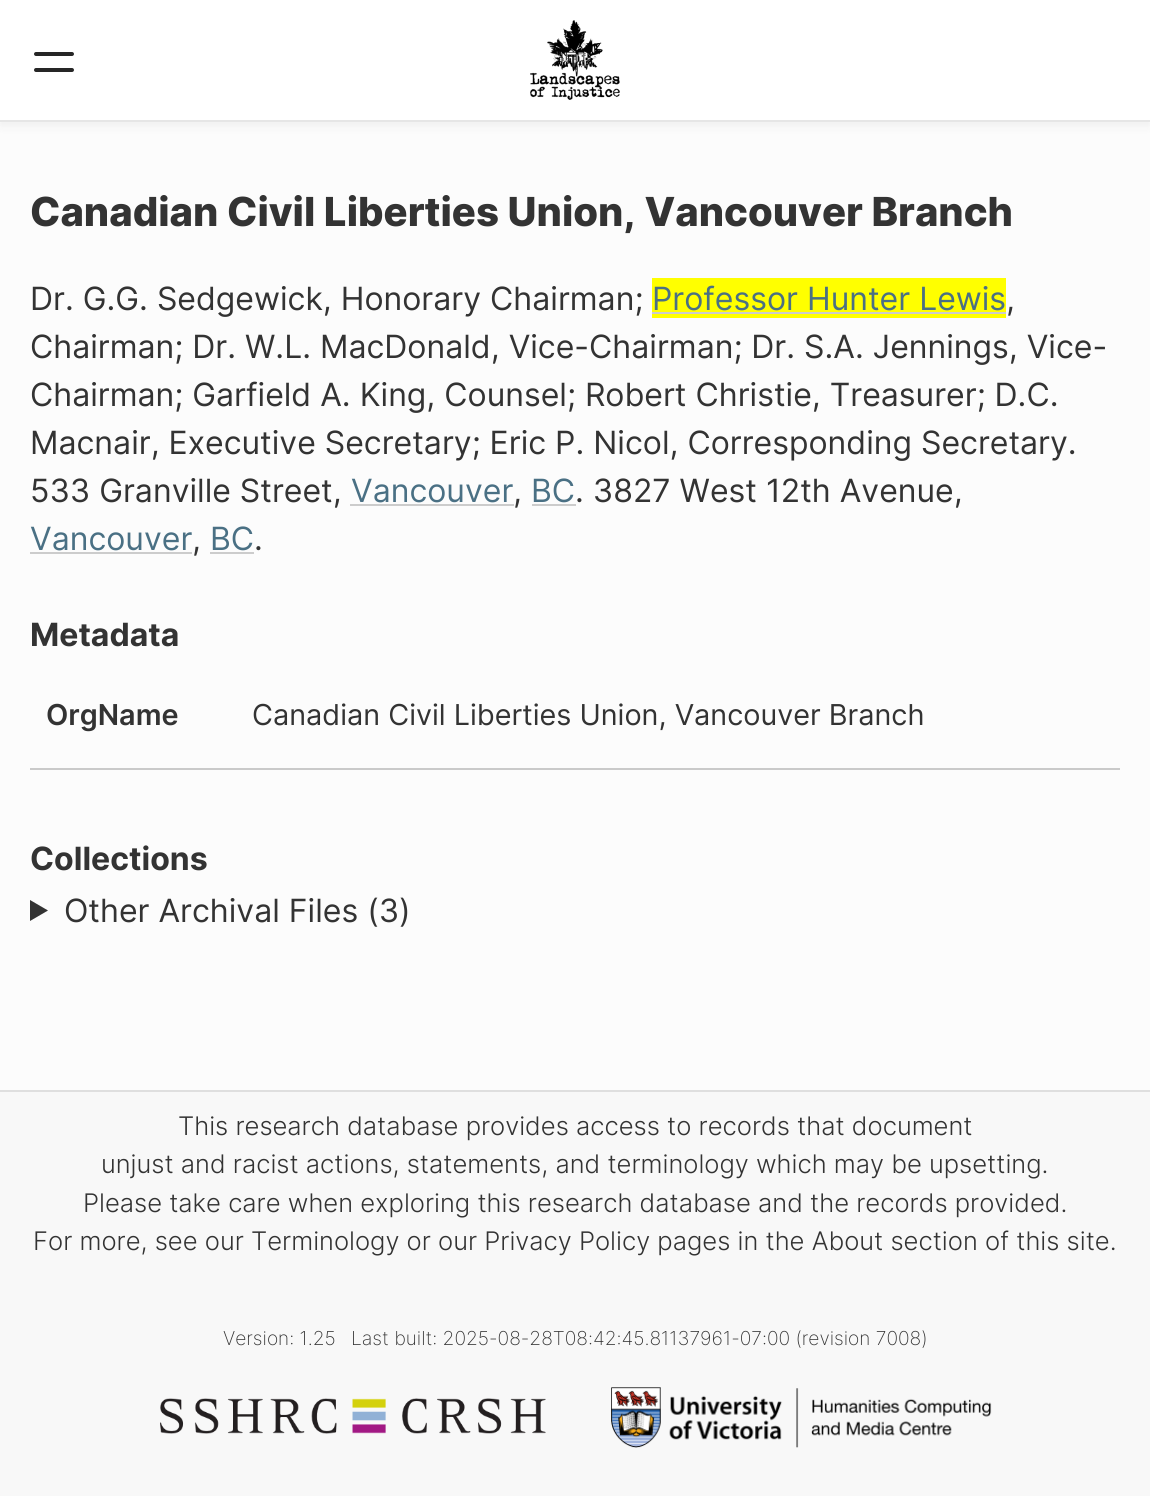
import math
import cairo



def rounded_rect(context, x, y, w, h, r):
    context.new_sub_path()
    for i, (u, v) in enumerate([(x + w - r, y + h - r), (x + r, y + h - r), (x + r, y + r), (x + w - r, y + r)]):
        context.arc(u, v, r, i * math.pi / 2, (i + 1) * math.pi / 2)
    context.close_path()


def draw_shadow(context, x, y, w, h, r, blur, alpha):
    context.push_group_with_content(cairo.Content.ALPHA)
    context.set_operator(cairo.Operator.SOURCE)
    for i in range(15, -16, -2):
        e = blur * i / 6
        if min(w, h) + 2 * e > 0:
            context.set_source_rgba(0, 0, 0, alpha * math.erfc((i - 1) / 8.5) / 2)
            rounded_rect(context, x - e, y - e, w + 2 * e, h + 2 * e, max(0, min(r + e + blur * .6, min(w, h) / 2 + e)))
            context.fill()
    context.mask(context.pop_group())


def draw_image(context, path, x, y, w, h):
    context.save()
    context.set_source_surface(cairo.ImageSurface.create_from_png(path), x, y)
    context.rectangle(x, y, w, h)
    context.fill()
    context.restore()


def draw(context):
    context.set_source_rgb(252 / 255, 252 / 255, 252 / 255)
    context.paint()
    context.set_source_rgb(0, 0, 0)
    draw_shadow(context, 0, 4, 1150, 122, 0, 5, 0.05)
    context.set_source_rgb(1, 1, 1)
    context.rectangle(0, 0, 1150, 120)
    context.fill()
    context.set_source_rgb(230 / 255, 230 / 255, 230 / 255)
    context.rectangle(0, 120, 1150, 2)
    context.fill()
    context.set_source_rgb(38 / 255, 38 / 255, 38 / 255)
    rounded_rect(context, 34, 52, 40, 4, 2)
    context.fill()
    rounded_rect(context, 34, 68, 40, 4, 2)
    context.fill()
    draw_image(context, "images/1.png", 530, 20, 90, 80)
    context.set_source_rgb(1, 1, 0)
    context.rectangle(652, 278, 354, 40)
    context.fill()
    context.set_source_rgb(204 / 255, 204 / 255, 204 / 255)
    context.rectangle(652, 312, 354, 2)
    context.fill()
    context.rectangle(350, 504, 164, 2)
    context.fill()
    context.rectangle(532, 504, 44, 2)
    context.fill()
    context.rectangle(30, 552, 162, 2)
    context.fill()
    context.rectangle(210, 552, 44, 2)
    context.fill()
    context.set_source_rgb(202 / 255, 202 / 255, 202 / 255)
    context.rectangle(30, 768, 1090, 2)
    context.fill()
    context.set_source_rgb(51 / 255, 51 / 255, 51 / 255)
    context.new_path()
    context.move_to(30, 900)
    context.line_to(48, 910.5)
    context.line_to(30, 921)
    context.close_path()
    context.fill()
    context.set_source_rgb(248 / 255, 248 / 255, 248 / 255)
    context.rectangle(0, 1092, 1150, 404)
    context.fill()
    context.set_source_rgb(223 / 255, 223 / 255, 223 / 255)
    context.rectangle(0, 1090, 1150, 2)
    context.fill()
    draw_image(context, "images/2.png", 160, 1398, 386, 36)
    draw_image(context, "images/3.png", 611, 1387, 381, 61)
    context.select_font_face("Inter ExtraBold")
    context.set_font_size(40)
    context.set_source_rgb(51 / 255, 51 / 255, 51 / 255)
    context.move_to(30, 226)
    context.show_text("Canadian Civil Liberties Union, Vancouver Branch")
    context.select_font_face("Inter")
    context.set_font_size(32)
    context.move_to(30, 310)
    context.show_text("Dr. G.G. Sedgewick, Honorary Chairman;")
    context.set_source_rgb(74 / 255, 112 / 255, 132 / 255)
    context.move_to(652, 310)
    context.show_text("Professor Hunter Lewis")
    context.set_source_rgb(51 / 255, 51 / 255, 51 / 255)
    context.move_to(1006, 310)
    context.show_text(",")
    context.move_to(30, 358)
    context.show_text("Chairman; Dr. W.L. MacDonald, Vice-Chairman; Dr. S.A. Jennings, Vice-")
    context.move_to(30, 406)
    context.show_text("Chairman; Garfield A. King, Counsel; Robert Christie, Treasurer; D.C.")
    context.move_to(30, 454)
    context.show_text("Macnair, Executive Secretary; Eric P. Nicol, Corresponding Secretary.")
    context.move_to(30, 502)
    context.show_text("533 Granville Street,")
    context.set_source_rgb(74 / 255, 112 / 255, 132 / 255)
    context.move_to(351, 502)
    context.show_text("Vancouver")
    context.set_source_rgb(51 / 255, 51 / 255, 51 / 255)
    context.move_to(513, 502)
    context.show_text(",")
    context.set_source_rgb(74 / 255, 112 / 255, 132 / 255)
    context.move_to(531, 502)
    context.show_text("BC")
    context.set_source_rgb(51 / 255, 51 / 255, 51 / 255)
    context.move_to(575, 502)
    context.show_text(". 3827 West 12th Avenue,")
    context.set_source_rgb(74 / 255, 112 / 255, 132 / 255)
    context.move_to(30, 550)
    context.show_text("Vancouver")
    context.set_source_rgb(51 / 255, 51 / 255, 51 / 255)
    context.move_to(192, 550)
    context.show_text(",")
    context.set_source_rgb(74 / 255, 112 / 255, 132 / 255)
    context.move_to(210, 550)
    context.show_text("BC")
    context.set_source_rgb(51 / 255, 51 / 255, 51 / 255)
    context.move_to(254, 550)
    context.show_text(".")
    context.select_font_face("Inter", cairo.FontSlant.NORMAL, cairo.FontWeight.BOLD)
    context.move_to(30, 646)
    context.show_text("Metadata")
    context.select_font_face("Inter SemiBold")
    context.set_font_size(28.8)
    context.move_to(46, 725)
    context.show_text("OrgName")
    context.select_font_face("Inter")
    context.move_to(252, 725)
    context.show_text("Canadian Civil Liberties Union, Vancouver Branch")
    context.select_font_face("Inter", cairo.FontSlant.NORMAL, cairo.FontWeight.BOLD)
    context.set_font_size(32)
    context.move_to(30, 870)
    context.show_text("Collections")
    context.select_font_face("Inter")
    context.move_to(64, 922)
    context.show_text("Other Archival Files (3)")
    context.select_font_face("Inter Light")
    context.set_font_size(25.6)
    context.move_to(178, 1135)
    context.show_text("This research database provides access to records that document")
    context.move_to(101, 1173)
    context.show_text("unjust and racist actions, statements, and terminology which may be upsetting.")
    context.move_to(83, 1212)
    context.show_text("Please take care when exploring this research database and the records provided.")
    context.move_to(33, 1250)
    context.show_text("For more, see our Terminology or our Privacy Policy pages in the About section of this site.")
    context.select_font_face("Inter ExtraLight")
    context.set_font_size(19.2)
    context.move_to(223, 1345)
    context.show_text("Version: 1.25")
    context.move_to(351, 1345)
    context.show_text("Last built: 2025-08-28T08:42:45.81137961-07:00 (revision 7008)")


surface = cairo.ImageSurface(cairo.Format.RGB24, 1150, 1496)
context = cairo.Context(surface)
options = cairo.FontOptions()
options.set_hint_metrics(cairo.HintMetrics.OFF)
options.set_hint_style(cairo.HintStyle.NONE)
context.set_font_options(options)
context.set_miter_limit(4)
draw(context)
surface.write_to_png("out.png")
